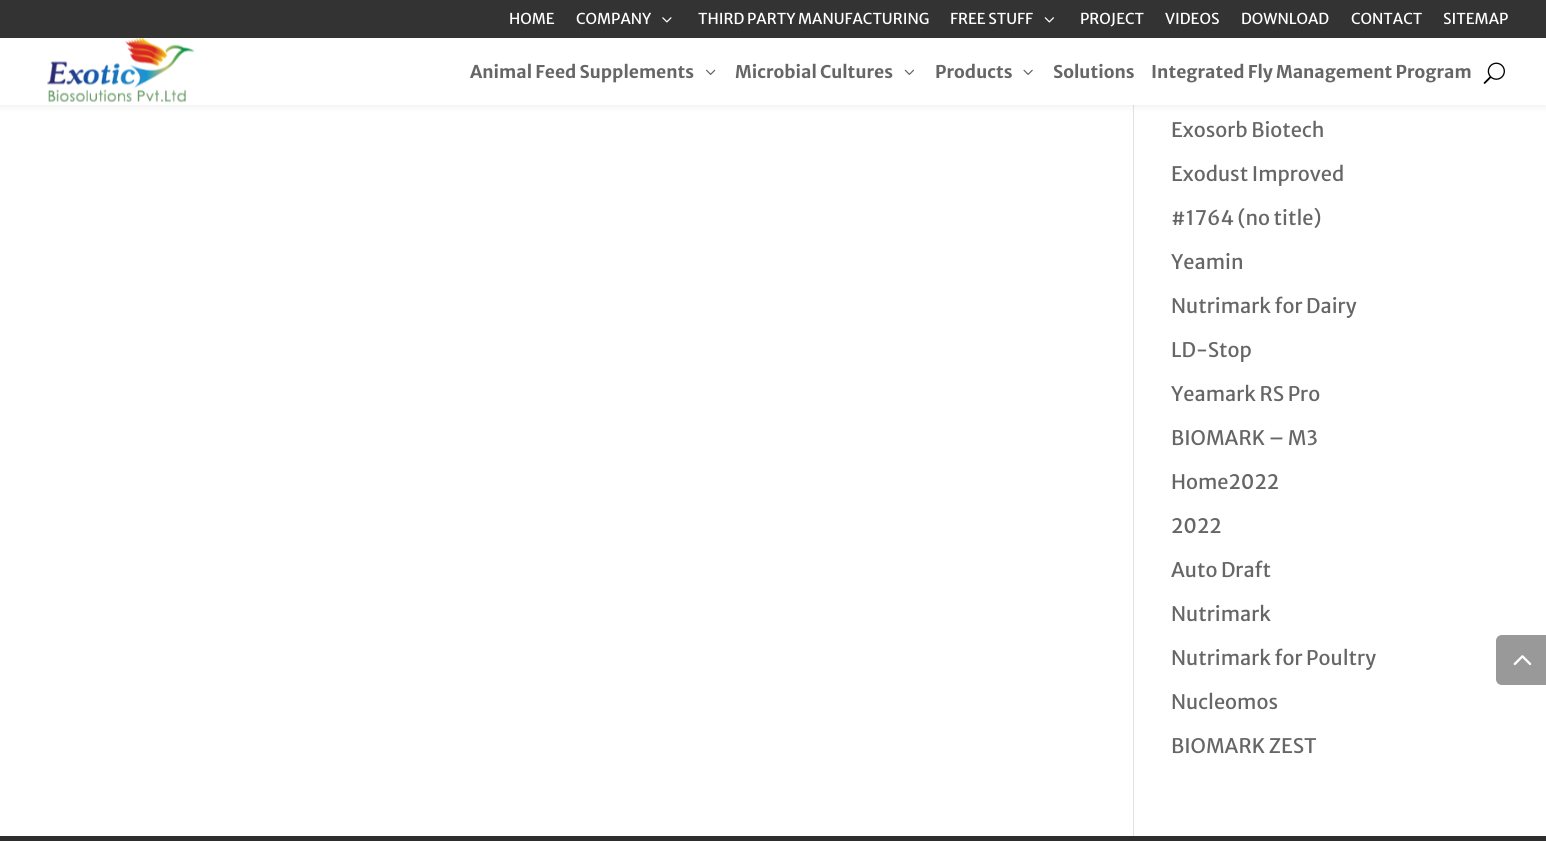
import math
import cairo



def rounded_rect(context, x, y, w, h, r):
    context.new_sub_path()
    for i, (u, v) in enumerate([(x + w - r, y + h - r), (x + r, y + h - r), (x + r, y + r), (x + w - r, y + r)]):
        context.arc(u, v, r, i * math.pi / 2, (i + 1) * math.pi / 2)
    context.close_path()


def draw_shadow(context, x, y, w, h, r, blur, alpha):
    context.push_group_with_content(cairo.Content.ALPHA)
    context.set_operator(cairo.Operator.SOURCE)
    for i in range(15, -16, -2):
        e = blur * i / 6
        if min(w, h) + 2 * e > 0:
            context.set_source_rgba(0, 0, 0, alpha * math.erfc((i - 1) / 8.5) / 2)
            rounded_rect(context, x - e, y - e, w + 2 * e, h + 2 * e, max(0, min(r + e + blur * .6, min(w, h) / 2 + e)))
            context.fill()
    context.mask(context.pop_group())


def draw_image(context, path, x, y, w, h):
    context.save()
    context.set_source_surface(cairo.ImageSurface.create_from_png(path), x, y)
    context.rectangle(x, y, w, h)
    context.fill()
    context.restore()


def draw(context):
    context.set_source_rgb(1, 1, 1)
    context.paint()
    context.set_source_rgb(226 / 255, 226 / 255, 226 / 255)
    context.rectangle(1133, 105, 1, 731)
    context.fill()
    context.set_source_rgb(0, 0, 0)
    draw_shadow(context, 0, 38, 1546, 67, 0, 4.5, 0.1)
    context.set_source_rgb(51 / 255, 51 / 255, 51 / 255)
    context.rectangle(0, 0, 1546, 38)
    context.fill()
    draw_image(context, "images/1.png", 662, 17, 10, 6)
    draw_image(context, "images/2.png", 1044, 17, 10, 6)
    context.set_source_rgb(1, 1, 1)
    context.rectangle(0, 38, 1546, 67)
    context.fill()
    draw_image(context, "images/3.png", 47, 38, 148, 65)
    draw_image(context, "images/4.png", 706, 69, 10, 6)
    draw_image(context, "images/5.png", 904, 69, 10, 6)
    draw_image(context, "images/6.png", 1023, 69, 10, 6)
    draw_image(context, "images/7.png", 1483, 62, 22, 22)
    context.set_source_rgb(153 / 255, 153 / 255, 153 / 255)
    context.new_path()
    context.move_to(1502, 635)
    context.line_to(1546, 635)
    context.line_to(1546, 685)
    context.line_to(1502, 685)
    context.curve_to(1498.5, 685, 1496, 682.5, 1496, 679)
    context.line_to(1496, 641)
    context.curve_to(1496, 637.5, 1498.5, 635, 1502, 635)
    context.close_path()
    context.fill()
    draw_image(context, "images/8.png", 1513, 655, 19, 11)
    context.set_source_rgb(45 / 255, 45 / 255, 45 / 255)
    context.rectangle(0, 836, 1546, 5)
    context.fill()
    context.select_font_face("Merriweather Sans")
    context.set_font_size(15)
    context.set_source_rgb(1, 1, 1)
    context.move_to(509, 24)
    context.show_text("HOME")
    context.move_to(576, 24)
    context.show_text("COMPANY")
    context.move_to(698, 24)
    context.show_text("THIRD PARTY MANUFACTURING")
    context.move_to(950, 24)
    context.show_text("FREE STUFF")
    context.move_to(1080, 24)
    context.show_text("PROJECT")
    context.move_to(1165, 24)
    context.show_text("VIDEOS")
    context.move_to(1241, 24)
    context.show_text("DOWNLOAD")
    context.move_to(1351, 24)
    context.show_text("CONTACT")
    context.move_to(1443, 24)
    context.show_text("SITEMAP")
    context.select_font_face("Merriweather Sans", cairo.FontSlant.NORMAL, cairo.FontWeight.BOLD)
    context.set_font_size(17.5)
    context.set_source_rgb(102 / 255, 102 / 255, 102 / 255)
    context.move_to(470, 78)
    context.show_text("Animal Feed Supplements")
    context.move_to(735, 78)
    context.show_text("Microbial Cultures")
    context.move_to(935, 78)
    context.show_text("Products")
    context.move_to(1053, 78)
    context.show_text("Solutions")
    context.move_to(1151, 78)
    context.show_text("Integrated Fly Management Program")
    context.select_font_face("Merriweather Sans")
    context.set_font_size(20)
    context.move_to(1171, 137)
    context.show_text("Exosorb Biotech")
    context.move_to(1171, 181)
    context.show_text("Exodust Improved")
    context.move_to(1171, 225)
    context.show_text("#1764 (no title)")
    context.move_to(1171, 269)
    context.show_text("Yeamin")
    context.move_to(1171, 313)
    context.show_text("Nutrimark for Dairy")
    context.move_to(1171, 357)
    context.show_text("LD-Stop")
    context.move_to(1171, 401)
    context.show_text("Yeamark RS Pro")
    context.move_to(1171, 445)
    context.show_text("BIOMARK – M3")
    context.move_to(1171, 489)
    context.show_text("Home2022")
    context.move_to(1171, 533)
    context.show_text("2022")
    context.move_to(1171, 577)
    context.show_text("Auto Draft")
    context.move_to(1171, 621)
    context.show_text("Nutrimark")
    context.move_to(1171, 665)
    context.show_text("Nutrimark for Poultry")
    context.move_to(1171, 709)
    context.show_text("Nucleomos")
    context.move_to(1171, 753)
    context.show_text("BIOMARK ZEST")


surface = cairo.ImageSurface(cairo.Format.RGB24, 1546, 841)
context = cairo.Context(surface)
options = cairo.FontOptions()
options.set_hint_metrics(cairo.HintMetrics.OFF)
options.set_hint_style(cairo.HintStyle.NONE)
context.set_font_options(options)
context.set_miter_limit(4)
draw(context)
surface.write_to_png("out.png")
